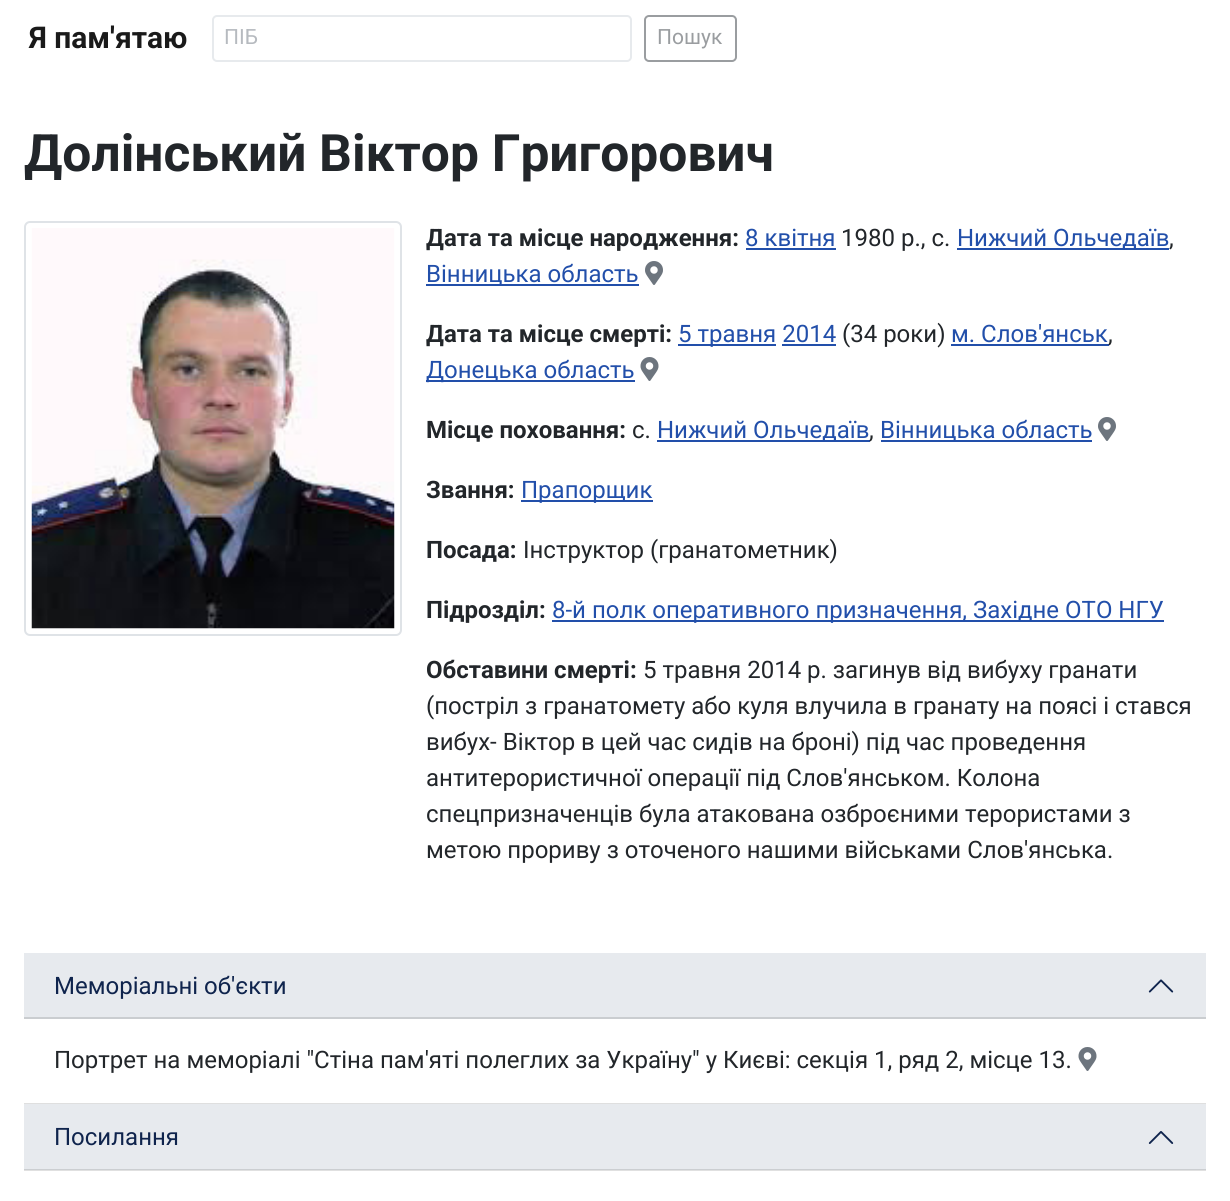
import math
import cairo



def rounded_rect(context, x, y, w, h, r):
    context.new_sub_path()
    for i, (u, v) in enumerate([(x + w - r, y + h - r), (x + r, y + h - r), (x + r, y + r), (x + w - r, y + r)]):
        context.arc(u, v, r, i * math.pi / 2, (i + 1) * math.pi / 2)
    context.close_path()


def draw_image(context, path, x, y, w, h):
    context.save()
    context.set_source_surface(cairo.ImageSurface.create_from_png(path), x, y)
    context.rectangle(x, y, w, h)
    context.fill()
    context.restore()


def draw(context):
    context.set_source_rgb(1, 1, 1)
    context.paint()
    rounded_rect(context, 213, 16, 418, 45, 4)
    context.set_source_rgb(231 / 255, 234 / 255, 237 / 255)
    context.stroke()
    rounded_rect(context, 645, 16, 91, 45, 4)
    context.set_source_rgb(154 / 255, 157 / 255, 160 / 255)
    context.stroke()
    rounded_rect(context, 25, 222, 376, 413, 5)
    context.set_source_rgb(223 / 255, 227 / 255, 231 / 255)
    context.stroke()
    draw_image(context, "images/1.png", 31, 228, 364, 401)
    context.set_source_rgb(34 / 255, 79 / 255, 170 / 255)
    context.rectangle(746, 248, 90, 2)
    context.fill()
    context.rectangle(957, 248, 212, 2)
    context.fill()
    context.rectangle(426, 284, 213, 2)
    context.fill()
    draw_image(context, "images/2.png", 645, 261, 18, 24)
    context.rectangle(678, 344, 98, 2)
    context.fill()
    context.rectangle(951, 344, 158, 2)
    context.fill()
    context.rectangle(782, 344, 54, 2)
    context.fill()
    context.rectangle(426, 380, 209, 2)
    context.fill()
    draw_image(context, "images/3.png", 640, 357, 19, 24)
    context.rectangle(657, 440, 213, 2)
    context.fill()
    context.rectangle(881, 440, 211, 2)
    context.fill()
    draw_image(context, "images/2.png", 1098, 417, 18, 24)
    context.rectangle(521, 500, 132, 2)
    context.fill()
    context.rectangle(552, 620, 612, 2)
    context.fill()
    context.set_source_rgb(223 / 255, 223 / 255, 223 / 255)
    context.rectangle(24, 1103, 1182, 1)
    context.fill()
    context.set_source_rgb(231 / 255, 234 / 255, 238 / 255)
    context.rectangle(24, 953, 1182, 64)
    context.fill()
    context.set_source_rgb(202 / 255, 205 / 255, 208 / 255)
    context.rectangle(24, 1017, 1182, 2)
    context.fill()
    draw_image(context, "images/4.png", 1148, 979, 26, 14)
    draw_image(context, "images/3.png", 1078, 1047, 19, 24)
    context.set_source_rgb(224 / 255, 224 / 255, 224 / 255)
    context.rectangle(24, 1170, 1182, 1)
    context.fill()
    context.set_source_rgb(231 / 255, 234 / 255, 238 / 255)
    context.rectangle(24, 1104, 1182, 65)
    context.fill()
    context.set_source_rgb(203 / 255, 206 / 255, 209 / 255)
    context.rectangle(24, 1169, 1182, 1)
    context.fill()
    draw_image(context, "images/5.png", 1148, 1131, 26, 13)
    context.select_font_face("Roboto", cairo.FontSlant.NORMAL, cairo.FontWeight.BOLD)
    context.set_font_size(30)
    context.set_source_rgb(26 / 255, 26 / 255, 26 / 255)
    context.move_to(29, 48)
    context.show_text("Я пам'ятаю")
    context.select_font_face("Roboto")
    context.set_font_size(21)
    context.set_source_rgb(182 / 255, 186 / 255, 191 / 255)
    context.move_to(224, 44)
    context.show_text("ПІБ")
    context.set_source_rgb(154 / 255, 157 / 255, 160 / 255)
    context.move_to(657, 44)
    context.show_text("Пошук")
    context.select_font_face("Roboto", cairo.FontSlant.NORMAL, cairo.FontWeight.BOLD)
    context.set_font_size(51.5)
    context.set_source_rgb(34 / 255, 38 / 255, 42 / 255)
    context.move_to(24, 171)
    context.show_text("Долінський Віктор Григорович")
    context.set_font_size(24)
    context.move_to(426, 246)
    context.show_text("Дата та місце народження:")
    context.select_font_face("Roboto")
    context.set_source_rgb(34 / 255, 79 / 255, 170 / 255)
    context.move_to(745, 246)
    context.show_text("8 квітня")
    context.set_source_rgb(34 / 255, 38 / 255, 42 / 255)
    context.move_to(841, 246)
    context.show_text("1980 р., с.")
    context.set_source_rgb(34 / 255, 79 / 255, 170 / 255)
    context.move_to(957, 246)
    context.show_text("Нижчий Ольчедаїв")
    context.set_source_rgb(34 / 255, 38 / 255, 42 / 255)
    context.move_to(1169, 246)
    context.show_text(",")
    context.set_source_rgb(34 / 255, 79 / 255, 170 / 255)
    context.move_to(426, 282)
    context.show_text("Вінницька область")
    context.select_font_face("Roboto", cairo.FontSlant.NORMAL, cairo.FontWeight.BOLD)
    context.set_source_rgb(34 / 255, 38 / 255, 42 / 255)
    context.move_to(426, 342)
    context.show_text("Дата та місце смерті:")
    context.select_font_face("Roboto")
    context.set_source_rgb(34 / 255, 79 / 255, 170 / 255)
    context.move_to(678, 342)
    context.show_text("5 травня 2014")
    context.set_source_rgb(34 / 255, 38 / 255, 42 / 255)
    context.move_to(842, 342)
    context.show_text("(34 роки)")
    context.set_source_rgb(34 / 255, 79 / 255, 170 / 255)
    context.move_to(951, 342)
    context.show_text("м. Слов'янськ")
    context.set_source_rgb(34 / 255, 38 / 255, 42 / 255)
    context.move_to(1108, 342)
    context.show_text(",")
    context.set_source_rgb(34 / 255, 79 / 255, 170 / 255)
    context.move_to(426, 378)
    context.show_text("Донецька область")
    context.select_font_face("Roboto", cairo.FontSlant.NORMAL, cairo.FontWeight.BOLD)
    context.set_source_rgb(34 / 255, 38 / 255, 42 / 255)
    context.move_to(426, 438)
    context.show_text("Місце поховання:")
    context.select_font_face("Roboto")
    context.move_to(632, 438)
    context.show_text("с.")
    context.set_source_rgb(34 / 255, 79 / 255, 170 / 255)
    context.move_to(657, 438)
    context.show_text("Нижчий Ольчедаїв")
    context.set_source_rgb(34 / 255, 38 / 255, 42 / 255)
    context.move_to(869, 438)
    context.show_text(",")
    context.set_source_rgb(34 / 255, 79 / 255, 170 / 255)
    context.move_to(880, 438)
    context.show_text("Вінницька область")
    context.select_font_face("Roboto", cairo.FontSlant.NORMAL, cairo.FontWeight.BOLD)
    context.set_source_rgb(34 / 255, 38 / 255, 42 / 255)
    context.move_to(426, 498)
    context.show_text("Звання:")
    context.select_font_face("Roboto")
    context.set_source_rgb(34 / 255, 79 / 255, 170 / 255)
    context.move_to(521, 498)
    context.show_text("Прапорщик")
    context.select_font_face("Roboto", cairo.FontSlant.NORMAL, cairo.FontWeight.BOLD)
    context.set_source_rgb(34 / 255, 38 / 255, 42 / 255)
    context.move_to(426, 558)
    context.show_text("Посада:")
    context.select_font_face("Roboto")
    context.move_to(523, 558)
    context.show_text("Інструктор (гранатометник)")
    context.select_font_face("Roboto", cairo.FontSlant.NORMAL, cairo.FontWeight.BOLD)
    context.move_to(426, 618)
    context.show_text("Підрозділ:")
    context.select_font_face("Roboto")
    context.set_source_rgb(34 / 255, 79 / 255, 170 / 255)
    context.move_to(552, 618)
    context.show_text("8-й полк оперативного призначення, Західне ОТО НГУ")
    context.select_font_face("Roboto", cairo.FontSlant.NORMAL, cairo.FontWeight.BOLD)
    context.set_source_rgb(34 / 255, 38 / 255, 42 / 255)
    context.move_to(426, 678)
    context.show_text("Обставини смерті:")
    context.select_font_face("Roboto")
    context.move_to(643, 678)
    context.show_text("5 травня 2014 р. загинув від вибуху гранати")
    context.move_to(426, 714)
    context.show_text("(постріл з гранатомету або куля влучила в гранату на поясі і стався")
    context.move_to(426, 750)
    context.show_text("вибух- Віктор в цей час сидів на броні) під час проведення")
    context.move_to(426, 786)
    context.show_text("антитерористичної операції під Слов'янськом. Колона")
    context.move_to(426, 822)
    context.show_text("спецпризначенців була атакована озброєними терористами з")
    context.move_to(426, 858)
    context.show_text("метою прориву з оточеного нашими військами Слов'янська.")
    context.set_source_rgb(15 / 255, 36 / 255, 77 / 255)
    context.move_to(54, 994)
    context.show_text("Меморіальні об'єкти")
    context.set_source_rgb(34 / 255, 38 / 255, 42 / 255)
    context.move_to(54, 1068)
    context.show_text("Портрет на меморіалі \"Стіна пам'яті полеглих за Україну\" у Києві: секція 1, ряд 2, місце 13.")
    context.set_source_rgb(15 / 255, 36 / 255, 77 / 255)
    context.move_to(54, 1145)
    context.show_text("Посилання")


surface = cairo.ImageSurface(cairo.Format.RGB24, 1230, 1201)
context = cairo.Context(surface)
options = cairo.FontOptions()
options.set_hint_metrics(cairo.HintMetrics.OFF)
options.set_hint_style(cairo.HintStyle.NONE)
context.set_font_options(options)
context.set_miter_limit(4)
draw(context)
surface.write_to_png("out.png")
